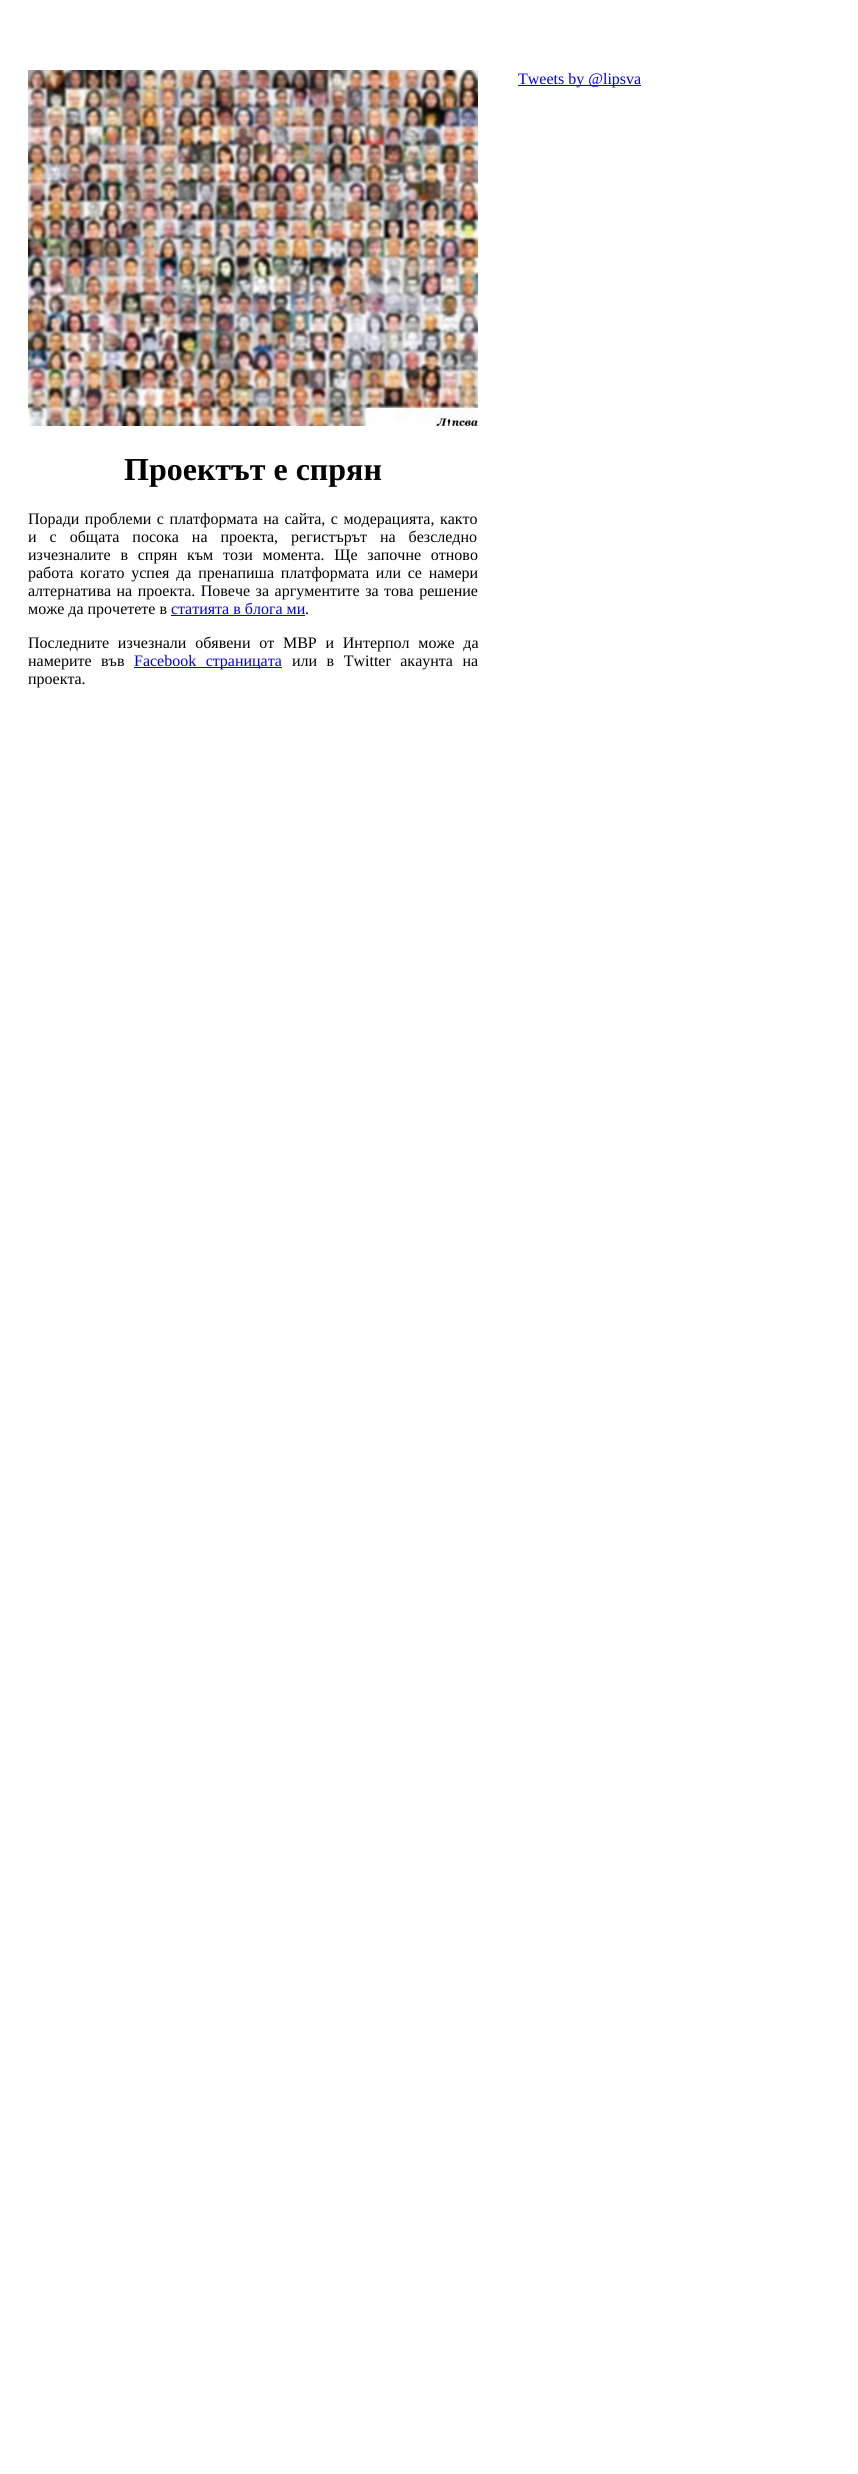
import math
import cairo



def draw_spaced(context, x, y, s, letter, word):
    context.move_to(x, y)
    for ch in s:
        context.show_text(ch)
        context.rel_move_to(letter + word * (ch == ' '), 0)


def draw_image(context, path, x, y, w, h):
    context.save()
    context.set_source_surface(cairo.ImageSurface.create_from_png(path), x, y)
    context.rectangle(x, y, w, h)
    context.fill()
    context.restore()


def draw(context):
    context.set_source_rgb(1, 1, 1)
    context.paint()
    context.set_source_rgb(0, 0, 238 / 255)
    context.rectangle(518, 85, 123, 1)
    context.fill()
    draw_image(context, "images/1.png", 28, 70, 450, 356)
    context.rectangle(171, 615, 134, 1)
    context.fill()
    context.rectangle(134, 667, 148, 1)
    context.fill()
    context.select_font_face("Liberation Serif")
    context.set_font_size(16)
    context.move_to(518, 84)
    context.show_text("Tweets by @lipsva")
    context.select_font_face("Liberation Serif", cairo.FontSlant.NORMAL, cairo.FontWeight.BOLD)
    context.set_font_size(32)
    context.set_source_rgb(0, 0, 0)
    context.move_to(124, 480)
    context.show_text("Проектът е спрян")
    context.select_font_face("Liberation Serif")
    context.set_font_size(16)
    draw_spaced(context, 28, 524, "Поради проблеми с платформата на сайта, с модерацията, както", 0, 1.5)
    draw_spaced(context, 28, 542, "и с общата посока на проекта, регистърът на безследно", 0, 9)
    draw_spaced(context, 28, 560, "изчезналите в спрян към този момента. Ще започне отново", 0, 5.75)
    draw_spaced(context, 28, 578, "работа когато успея да пренапиша платформата или се намери", 0, 2.75)
    draw_spaced(context, 28, 596, "алтернатива на проекта. Повече за аргументите за това решение", 0, 1.5)
    context.move_to(28, 614)
    context.show_text("може да прочетете в")
    context.set_source_rgb(0, 0, 238 / 255)
    context.move_to(171, 614)
    context.show_text("статията в блога ми")
    context.set_source_rgb(0, 0, 0)
    context.move_to(305, 614)
    context.show_text(".")
    draw_spaced(context, 28, 648, "Последните изчезнали обявени от МВР и Интерпол може да", 0, 4.75)
    draw_spaced(context, 28, 666, "намерите във", 0, 5.5)
    context.set_source_rgb(0, 0, 238 / 255)
    draw_spaced(context, 134, 666, "Facebook страницата", 0, 5.5)
    context.set_source_rgb(0, 0, 0)
    draw_spaced(context, 292, 666, "или в Twitter акаунта на", 0, 5.5)
    context.move_to(28, 684)
    context.show_text("проекта.")


surface = cairo.ImageSurface(cairo.Format.RGB24, 858, 2474)
context = cairo.Context(surface)
options = cairo.FontOptions()
options.set_hint_metrics(cairo.HintMetrics.OFF)
options.set_hint_style(cairo.HintStyle.NONE)
context.set_font_options(options)
context.set_miter_limit(4)
draw(context)
surface.write_to_png("out.png")
